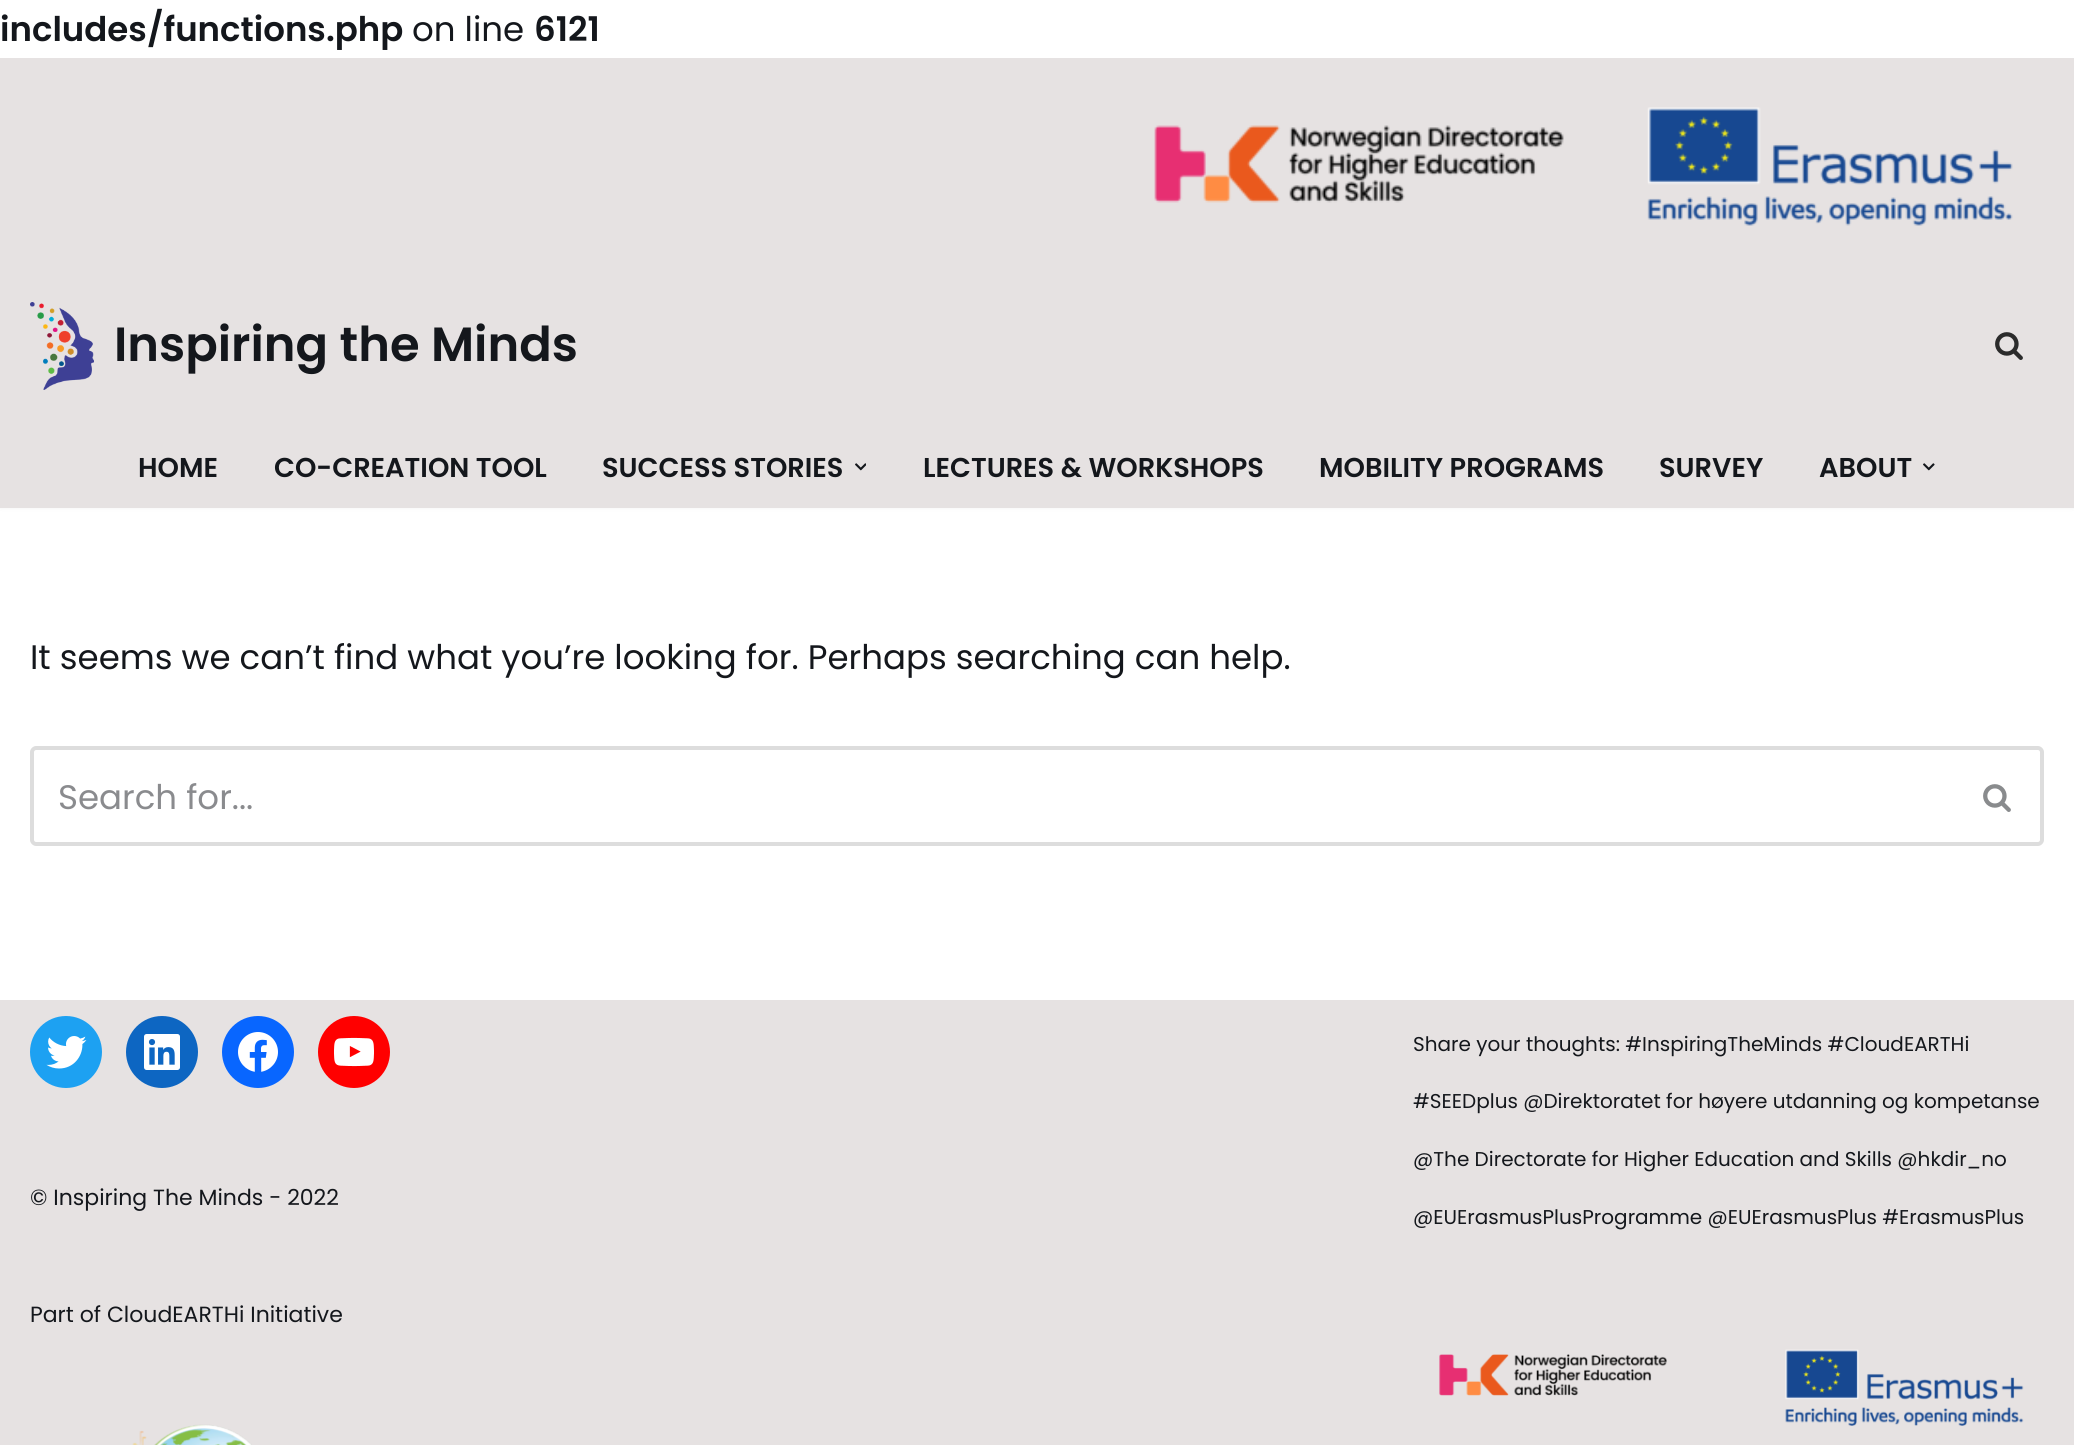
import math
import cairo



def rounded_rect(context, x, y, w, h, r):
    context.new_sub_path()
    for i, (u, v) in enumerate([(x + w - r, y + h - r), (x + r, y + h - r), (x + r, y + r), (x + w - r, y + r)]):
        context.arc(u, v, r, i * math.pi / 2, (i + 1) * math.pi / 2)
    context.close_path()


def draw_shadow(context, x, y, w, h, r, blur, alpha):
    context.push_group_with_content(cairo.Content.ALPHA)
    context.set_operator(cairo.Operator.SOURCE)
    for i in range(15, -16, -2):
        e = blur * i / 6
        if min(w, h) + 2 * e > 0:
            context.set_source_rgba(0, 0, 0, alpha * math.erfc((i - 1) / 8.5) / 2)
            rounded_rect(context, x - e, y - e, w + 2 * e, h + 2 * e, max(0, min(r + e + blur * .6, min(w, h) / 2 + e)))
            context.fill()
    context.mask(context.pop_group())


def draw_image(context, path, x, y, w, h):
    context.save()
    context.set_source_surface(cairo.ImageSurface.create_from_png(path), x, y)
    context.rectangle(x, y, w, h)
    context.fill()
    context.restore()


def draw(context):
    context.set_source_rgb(1, 1, 1)
    context.paint()
    context.save()
    context.rectangle(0, 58, 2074, 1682)
    context.clip()
    context.set_source_rgb(0, 0, 0)
    draw_shadow(context, 0, 56, 2074, 450, 0, 3, 0.1)
    context.restore()
    context.set_source_rgb(230 / 255, 226 / 255, 226 / 255)
    context.rectangle(0, 58, 2074, 450)
    context.fill()
    draw_image(context, "images/1.png", 1154, 125, 410, 78)
    draw_image(context, "images/2.png", 1647, 107, 366, 119)
    draw_image(context, "images/3.png", 30, 302, 64, 88)
    draw_image(context, "images/4.png", 1995, 332, 28, 28)
    draw_image(context, "images/5.png", 855, 463, 11, 8)
    draw_image(context, "images/6.png", 1923, 463, 12, 8)
    context.set_source_rgb(221 / 255, 221 / 255, 221 / 255)
    context.set_fill_rule(cairo.FillRule.EVEN_ODD)
    context.new_path()
    context.move_to(36, 746)
    context.line_to(1954, 746)
    context.line_to(1954, 846)
    context.line_to(36, 846)
    context.curve_to(33, 846, 30, 843, 30, 840)
    context.line_to(30, 752)
    context.curve_to(30, 749, 33, 746, 36, 746)
    context.close_path()
    context.move_to(36, 750)
    context.line_to(1954, 750)
    context.line_to(1954, 842)
    context.line_to(36, 842)
    context.curve_to(35, 842, 34, 841, 34, 840)
    context.line_to(34, 752)
    context.curve_to(34, 751, 35, 750, 36, 750)
    context.close_path()
    context.fill()
    context.new_path()
    context.move_to(1954, 746)
    context.line_to(2038, 746)
    context.curve_to(2041, 746, 2044, 749, 2044, 752)
    context.line_to(2044, 840)
    context.curve_to(2044, 843, 2041, 846, 2038, 846)
    context.line_to(1954, 846)
    context.close_path()
    context.move_to(1954, 750)
    context.line_to(2038, 750)
    context.curve_to(2039, 750, 2040, 751, 2040, 752)
    context.line_to(2040, 840)
    context.curve_to(2040, 841, 2039, 842, 2038, 842)
    context.line_to(1954, 842)
    context.close_path()
    context.fill()
    draw_image(context, "images/7.png", 1983, 784, 28, 28)
    context.set_source_rgb(230 / 255, 226 / 255, 226 / 255)
    context.rectangle(0, 1000, 2074, 445)
    context.fill()
    draw_image(context, "images/8.png", 1439, 1354, 228, 42)
    draw_image(context, "images/9.png", 1785, 1349, 239, 77)
    context.set_source_rgb(29 / 255, 161 / 255, 242 / 255)
    context.arc(66, 1052, 36, 0, 2 * math.pi)
    context.fill()
    draw_image(context, "images/10.png", 46, 1036, 41, 33)
    context.set_source_rgb(13 / 255, 102 / 255, 194 / 255)
    context.arc(162, 1052, 36, 0, 2 * math.pi)
    context.fill()
    draw_image(context, "images/11.png", 144, 1034, 36, 36)
    context.set_source_rgb(8 / 255, 102 / 255, 1)
    context.arc(258, 1052, 36, 0, 2 * math.pi)
    context.fill()
    draw_image(context, "images/12.png", 238, 1032, 40, 40)
    context.set_source_rgb(1, 0, 0)
    context.arc(354, 1052, 36, 0, 2 * math.pi)
    context.fill()
    draw_image(context, "images/13.png", 334, 1037, 40, 30)
    draw_image(context, "images/14.png", 132, 1424, 120, 21)
    context.select_font_face("Poppins SemiBold")
    context.set_font_size(34)
    context.set_source_rgb(20 / 255, 23 / 255, 28 / 255)
    context.move_to(0, 41)
    context.show_text("includes/functions.php")
    context.select_font_face("Poppins")
    context.move_to(412, 41)
    context.show_text("on line")
    context.select_font_face("Poppins SemiBold")
    context.move_to(534, 41)
    context.show_text("6121")
    context.set_font_size(48)
    context.move_to(114, 361)
    context.show_text("Inspiring the Minds")
    context.set_font_size(27.25)
    context.move_to(138, 477)
    context.show_text("HOME")
    context.move_to(274, 477)
    context.show_text("CO-CREATION TOOL")
    context.move_to(602, 477)
    context.show_text("SUCCESS STORIES")
    context.move_to(923, 477)
    context.show_text("LECTURES & WORKSHOPS")
    context.move_to(1319, 477)
    context.show_text("MOBILITY PROGRAMS")
    context.move_to(1659, 477)
    context.show_text("SURVEY")
    context.move_to(1819, 477)
    context.show_text("ABOUT")
    context.select_font_face("Poppins")
    context.set_font_size(34)
    context.move_to(30, 669)
    context.show_text("It seems we can’t find what you’re looking for. Perhaps searching can help.")
    context.set_source_rgb(138 / 255, 139 / 255, 142 / 255)
    context.move_to(58, 809)
    context.show_text("Search for...")
    context.set_font_size(20)
    context.set_source_rgb(20 / 255, 23 / 255, 28 / 255)
    context.move_to(1413, 1051)
    context.show_text("Share your thoughts: #InspiringTheMinds #CloudEARTHi")
    context.move_to(1413, 1108)
    context.show_text("#SEEDplus @Direktoratet for høyere utdanning og kompetanse")
    context.move_to(1413, 1166)
    context.show_text("@The Directorate for Higher Education and Skills @hkdir_no")
    context.move_to(1413, 1224)
    context.show_text("@EUErasmusPlusProgramme @EUErasmusPlus #ErasmusPlus")
    context.set_font_size(22)
    context.move_to(30, 1205)
    context.show_text("© Inspiring The Minds - 2022")
    context.move_to(30, 1322)
    context.show_text("Part of CloudEARTHi Initiative")


surface = cairo.ImageSurface(cairo.Format.RGB24, 2074, 1445)
context = cairo.Context(surface)
options = cairo.FontOptions()
options.set_hint_metrics(cairo.HintMetrics.OFF)
options.set_hint_style(cairo.HintStyle.NONE)
context.set_font_options(options)
context.set_miter_limit(4)
draw(context)
surface.write_to_png("out.png")
